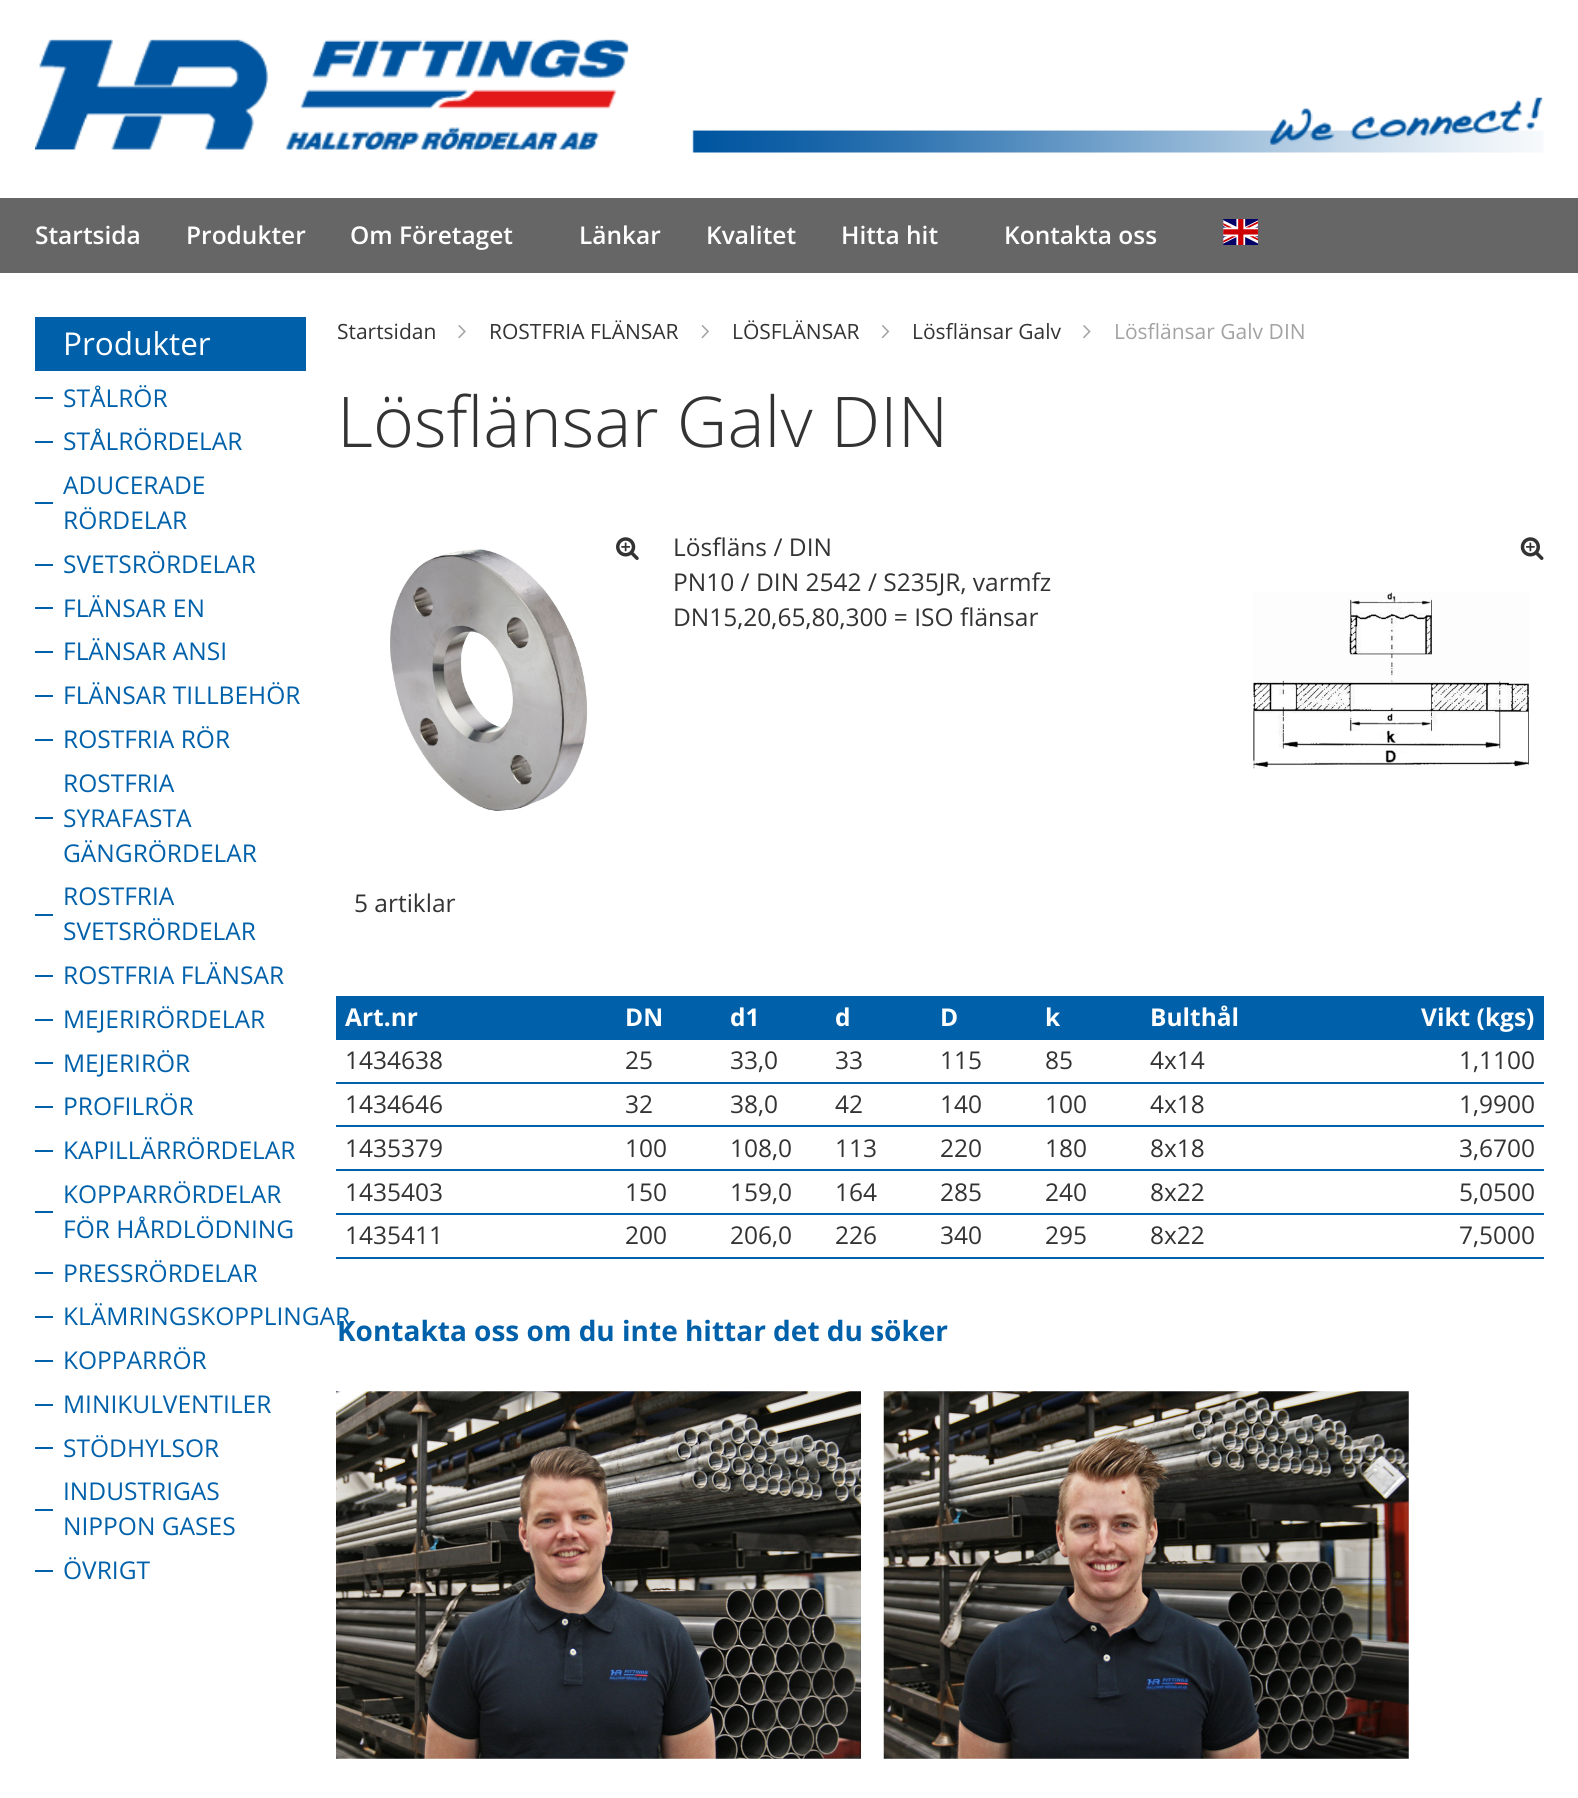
import math
import cairo



def draw_image(context, path, x, y, w, h):
    context.save()
    context.set_source_surface(cairo.ImageSurface.create_from_png(path), x, y)
    context.rectangle(x, y, w, h)
    context.fill()
    context.restore()


def draw(context):
    context.set_source_rgb(1, 1, 1)
    context.paint()
    draw_image(context, "images/1.png", 35, 39, 1509, 114)
    context.set_source_rgb(102 / 255, 102 / 255, 102 / 255)
    context.rectangle(0, 198, 1578, 75)
    context.fill()
    draw_image(context, "images/2.png", 1223, 219, 35, 26)
    context.set_source_rgb(0, 97 / 255, 170 / 255)
    context.rectangle(35, 317, 271, 54)
    context.fill()
    context.rectangle(35, 397, 18, 2)
    context.fill()
    context.rectangle(35, 441, 18, 2)
    context.fill()
    context.rectangle(35, 502, 18, 2)
    context.fill()
    context.rectangle(35, 564, 18, 2)
    context.fill()
    context.rectangle(35, 607, 18, 2)
    context.fill()
    context.rectangle(35, 651, 18, 2)
    context.fill()
    context.rectangle(35, 695, 18, 2)
    context.fill()
    context.rectangle(35, 739, 18, 2)
    context.fill()
    context.rectangle(35, 817, 18, 2)
    context.fill()
    context.rectangle(35, 914, 18, 2)
    context.fill()
    context.rectangle(35, 975, 18, 2)
    context.fill()
    context.rectangle(35, 1019, 18, 2)
    context.fill()
    context.rectangle(35, 1062, 18, 2)
    context.fill()
    context.rectangle(35, 1106, 18, 2)
    context.fill()
    context.rectangle(35, 1150, 18, 2)
    context.fill()
    context.rectangle(35, 1211, 18, 2)
    context.fill()
    context.rectangle(35, 1272, 18, 2)
    context.fill()
    context.rectangle(35, 1316, 18, 2)
    context.fill()
    context.rectangle(35, 1360, 18, 2)
    context.fill()
    context.rectangle(35, 1404, 18, 2)
    context.fill()
    context.rectangle(35, 1447, 18, 2)
    context.fill()
    context.rectangle(35, 1509, 18, 2)
    context.fill()
    context.rectangle(35, 1570, 18, 2)
    context.fill()
    draw_image(context, "images/3.png", 458, 325, 8, 14)
    draw_image(context, "images/4.png", 701, 325, 8, 14)
    draw_image(context, "images/5.png", 881, 325, 9, 14)
    draw_image(context, "images/6.png", 1083, 325, 8, 14)
    draw_image(context, "images/7.png", 390, 549, 198, 262)
    draw_image(context, "images/8.png", 616, 537, 23, 23)
    draw_image(context, "images/9.png", 1520, 537, 24, 23)
    draw_image(context, "images/10.png", 1253, 592, 276, 177)
    context.rectangle(336, 996, 1208, 44)
    context.fill()
    context.rectangle(336, 1082, 1208, 2)
    context.fill()
    context.rectangle(336, 1125, 1208, 2)
    context.fill()
    context.rectangle(336, 1169, 1208, 2)
    context.fill()
    context.rectangle(336, 1213, 1208, 2)
    context.fill()
    context.rectangle(336, 1257, 1208, 2)
    context.fill()
    draw_image(context, "images/11.png", 336, 1391, 525, 368)
    draw_image(context, "images/12.png", 883, 1391, 526, 368)
    context.select_font_face("Open Sans SemiBold")
    context.set_font_size(24.5)
    context.set_source_rgb(1, 1, 1)
    context.move_to(35, 244)
    context.show_text("Startsida")
    context.move_to(186, 244)
    context.show_text("Produkter")
    context.move_to(350, 244)
    context.show_text("Om Företaget")
    context.move_to(579, 244)
    context.show_text("Länkar")
    context.move_to(706, 244)
    context.show_text("Kvalitet")
    context.move_to(841, 244)
    context.show_text("Hitta hit")
    context.move_to(1004, 244)
    context.show_text("Kontakta oss")
    context.select_font_face("Open Sans")
    context.set_font_size(31.5)
    context.move_to(63, 355)
    context.show_text("Produkter")
    context.set_font_size(24.5)
    context.set_source_rgb(0, 97 / 255, 170 / 255)
    context.move_to(63, 407)
    context.show_text("STÅLRÖR")
    context.move_to(63, 450)
    context.show_text("STÅLRÖRDELAR")
    context.move_to(63, 494)
    context.show_text("ADUCERADE")
    context.move_to(63, 529)
    context.show_text("RÖRDELAR")
    context.move_to(63, 573)
    context.show_text("SVETSRÖRDELAR")
    context.move_to(63, 617)
    context.show_text("FLÄNSAR EN")
    context.move_to(63, 660)
    context.show_text("FLÄNSAR ANSI")
    context.move_to(63, 704)
    context.show_text("FLÄNSAR TILLBEHÖR")
    context.move_to(63, 748)
    context.show_text("ROSTFRIA RÖR")
    context.move_to(63, 792)
    context.show_text("ROSTFRIA")
    context.move_to(63, 827)
    context.show_text("SYRAFASTA")
    context.move_to(63, 862)
    context.show_text("GÄNGRÖRDELAR")
    context.move_to(63, 905)
    context.show_text("ROSTFRIA")
    context.move_to(63, 940)
    context.show_text("SVETSRÖRDELAR")
    context.move_to(63, 984)
    context.show_text("ROSTFRIA FLÄNSAR")
    context.move_to(63, 1028)
    context.show_text("MEJERIRÖRDELAR")
    context.move_to(63, 1072)
    context.show_text("MEJERIRÖR")
    context.move_to(63, 1115)
    context.show_text("PROFILRÖR")
    context.move_to(63, 1159)
    context.show_text("KAPILLÄRRÖRDELAR")
    context.move_to(63, 1203)
    context.show_text("KOPPARRÖRDELAR")
    context.move_to(63, 1238)
    context.show_text("FÖR HÅRDLÖDNING")
    context.move_to(63, 1282)
    context.show_text("PRESSRÖRDELAR")
    context.move_to(63, 1325)
    context.show_text("KLÄMRINGSKOPPLINGAR")
    context.move_to(63, 1369)
    context.show_text("KOPPARRÖR")
    context.move_to(63, 1413)
    context.show_text("MINIKULVENTILER")
    context.move_to(63, 1457)
    context.show_text("STÖDHYLSOR")
    context.move_to(63, 1500)
    context.show_text("INDUSTRIGAS")
    context.move_to(63, 1535)
    context.show_text("NIPPON GASES")
    context.move_to(63, 1579)
    context.show_text("ÖVRIGT")
    context.set_font_size(21)
    context.set_source_rgb(51 / 255, 51 / 255, 51 / 255)
    context.move_to(337, 339)
    context.show_text("Startsidan")
    context.move_to(489, 339)
    context.show_text("ROSTFRIA FLÄNSAR")
    context.move_to(732, 339)
    context.show_text("LÖSFLÄNSAR")
    context.move_to(912, 339)
    context.show_text("Lösflänsar Galv")
    context.set_source_rgb(163 / 255, 163 / 255, 163 / 255)
    context.move_to(1114, 339)
    context.show_text("Lösflänsar Galv DIN")
    context.select_font_face("Open Sans Light")
    context.set_font_size(70)
    context.set_source_rgb(51 / 255, 51 / 255, 51 / 255)
    context.move_to(337, 447)
    context.show_text("Lösflänsar Galv DIN")
    context.select_font_face("Open Sans")
    context.set_font_size(24.5)
    context.move_to(673, 556)
    context.show_text("Lösfläns / DIN")
    context.move_to(673, 591)
    context.show_text("PN10 / DIN 2542 / S235JR, varmfz")
    context.move_to(673, 626)
    context.show_text("DN15,20,65,80,300 = ISO flänsar")
    context.move_to(354, 912)
    context.show_text("5 artiklar")
    context.select_font_face("Open Sans", cairo.FontSlant.NORMAL, cairo.FontWeight.BOLD)
    context.set_source_rgb(1, 1, 1)
    context.move_to(345, 1026)
    context.show_text("Art.nr")
    context.move_to(625, 1026)
    context.show_text("DN")
    context.move_to(730, 1026)
    context.show_text("d1")
    context.move_to(835, 1026)
    context.show_text("d")
    context.move_to(940, 1026)
    context.show_text("D")
    context.move_to(1045, 1026)
    context.show_text("k")
    context.move_to(1150, 1026)
    context.show_text("Bulthål")
    context.move_to(1421, 1026)
    context.show_text("Vikt (kgs)")
    context.select_font_face("Open Sans")
    context.set_source_rgb(51 / 255, 51 / 255, 51 / 255)
    context.move_to(345, 1069)
    context.show_text("1434638")
    context.move_to(625, 1069)
    context.show_text("25")
    context.move_to(730, 1069)
    context.show_text("33,0")
    context.move_to(835, 1069)
    context.show_text("33")
    context.move_to(940, 1069)
    context.show_text("115")
    context.move_to(1045, 1069)
    context.show_text("85")
    context.move_to(1150, 1069)
    context.show_text("4x14")
    context.move_to(1459, 1069)
    context.show_text("1,1100")
    context.move_to(345, 1113)
    context.show_text("1434646")
    context.move_to(625, 1113)
    context.show_text("32")
    context.move_to(730, 1113)
    context.show_text("38,0")
    context.move_to(835, 1113)
    context.show_text("42")
    context.move_to(940, 1113)
    context.show_text("140")
    context.move_to(1045, 1113)
    context.show_text("100")
    context.move_to(1150, 1113)
    context.show_text("4x18")
    context.move_to(1459, 1113)
    context.show_text("1,9900")
    context.move_to(345, 1157)
    context.show_text("1435379")
    context.move_to(625, 1157)
    context.show_text("100")
    context.move_to(730, 1157)
    context.show_text("108,0")
    context.move_to(835, 1157)
    context.show_text("113")
    context.move_to(940, 1157)
    context.show_text("220")
    context.move_to(1045, 1157)
    context.show_text("180")
    context.move_to(1150, 1157)
    context.show_text("8x18")
    context.move_to(1459, 1157)
    context.show_text("3,6700")
    context.move_to(345, 1201)
    context.show_text("1435403")
    context.move_to(625, 1201)
    context.show_text("150")
    context.move_to(730, 1201)
    context.show_text("159,0")
    context.move_to(835, 1201)
    context.show_text("164")
    context.move_to(940, 1201)
    context.show_text("285")
    context.move_to(1045, 1201)
    context.show_text("240")
    context.move_to(1150, 1201)
    context.show_text("8x22")
    context.move_to(1459, 1201)
    context.show_text("5,0500")
    context.move_to(345, 1244)
    context.show_text("1435411")
    context.move_to(625, 1244)
    context.show_text("200")
    context.move_to(730, 1244)
    context.show_text("206,0")
    context.move_to(835, 1244)
    context.show_text("226")
    context.move_to(940, 1244)
    context.show_text("340")
    context.move_to(1045, 1244)
    context.show_text("295")
    context.move_to(1150, 1244)
    context.show_text("8x22")
    context.move_to(1459, 1244)
    context.show_text("7,5000")
    context.select_font_face("Open Sans", cairo.FontSlant.NORMAL, cairo.FontWeight.BOLD)
    context.set_font_size(28)
    context.set_source_rgb(0, 97 / 255, 170 / 255)
    context.move_to(337, 1341)
    context.show_text("Kontakta oss om du inte hittar det du söker")


surface = cairo.ImageSurface(cairo.Format.RGB24, 1578, 1798)
context = cairo.Context(surface)
options = cairo.FontOptions()
options.set_hint_metrics(cairo.HintMetrics.OFF)
options.set_hint_style(cairo.HintStyle.NONE)
context.set_font_options(options)
context.set_miter_limit(4)
draw(context)
surface.write_to_png("out.png")
